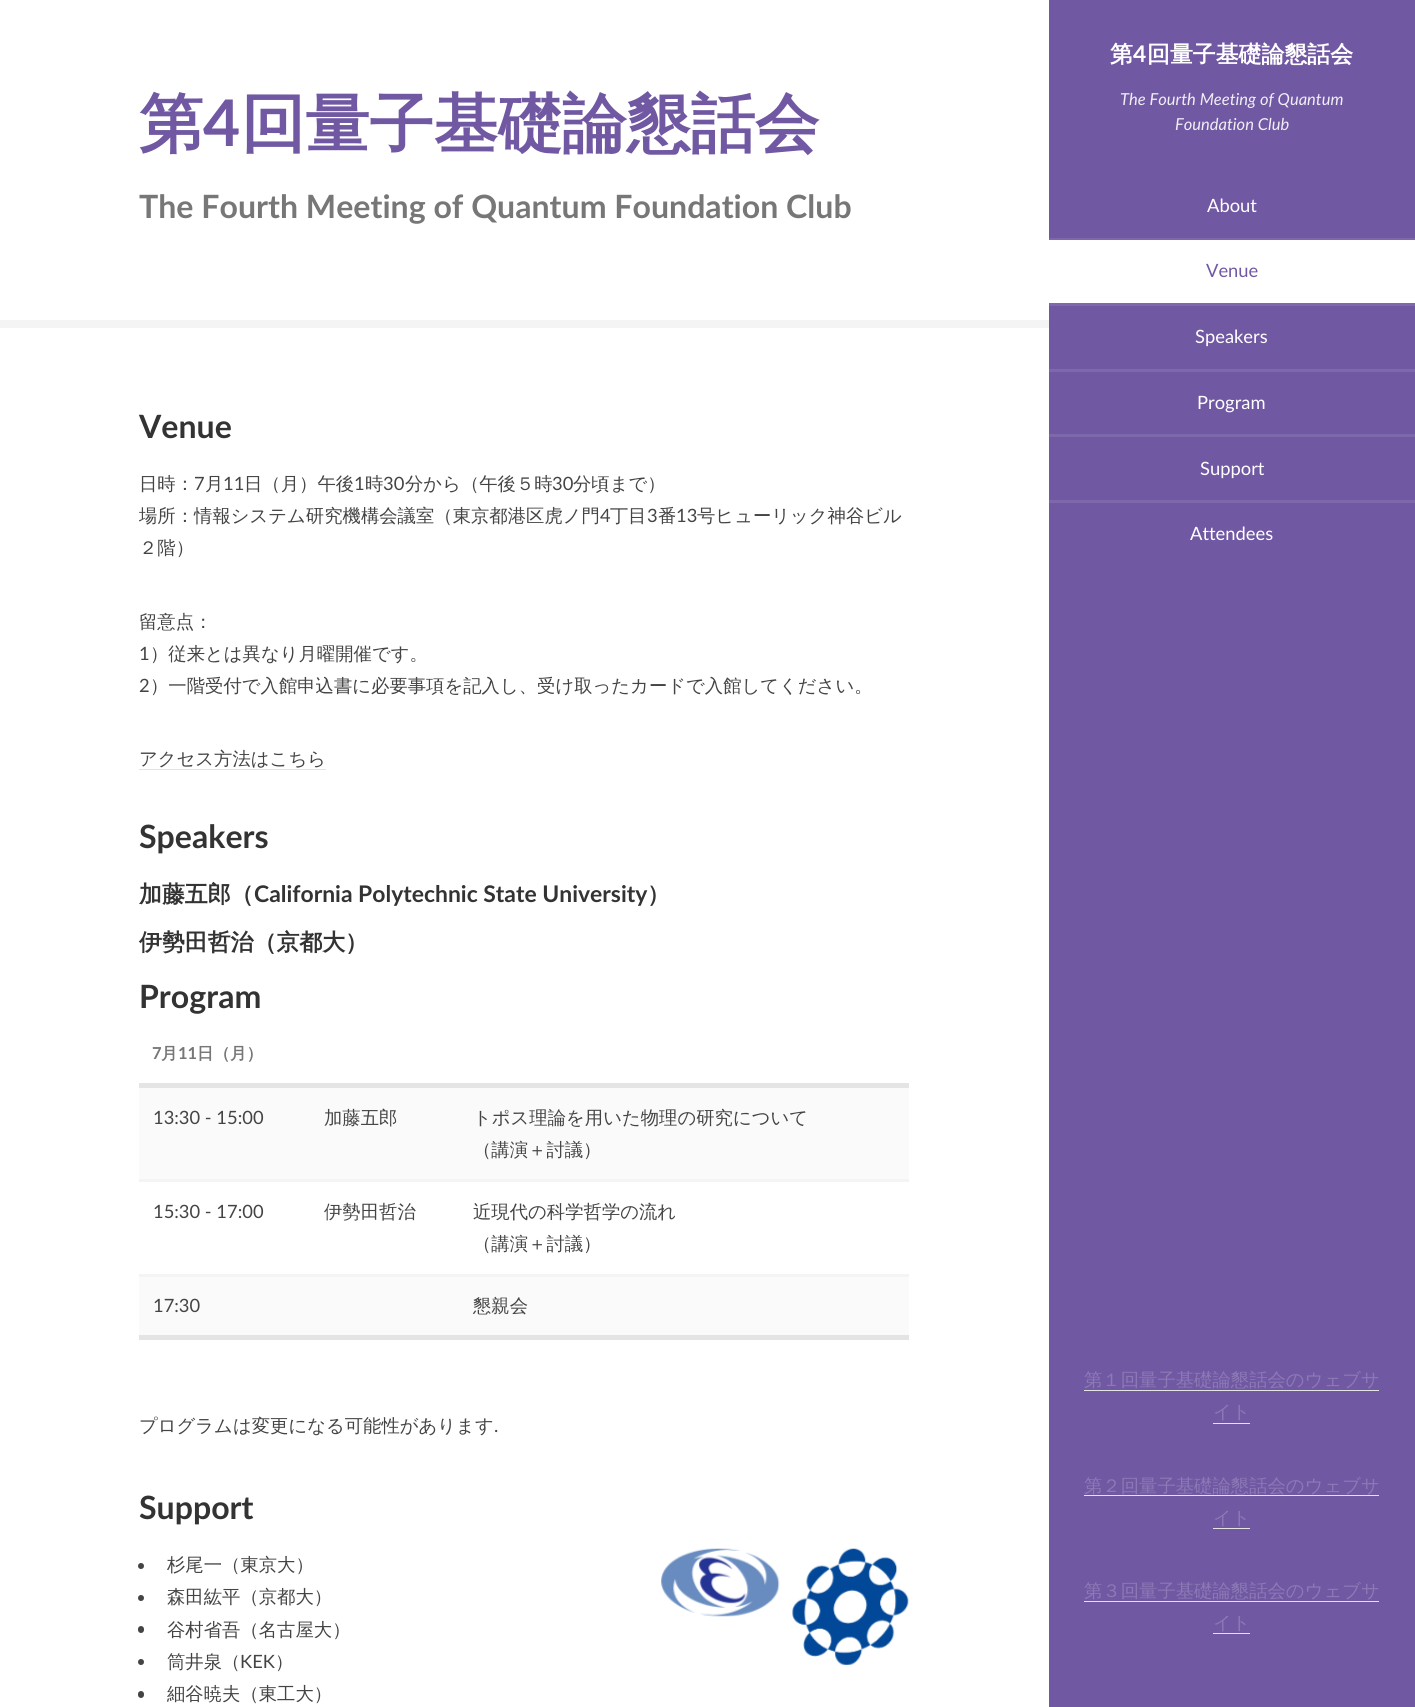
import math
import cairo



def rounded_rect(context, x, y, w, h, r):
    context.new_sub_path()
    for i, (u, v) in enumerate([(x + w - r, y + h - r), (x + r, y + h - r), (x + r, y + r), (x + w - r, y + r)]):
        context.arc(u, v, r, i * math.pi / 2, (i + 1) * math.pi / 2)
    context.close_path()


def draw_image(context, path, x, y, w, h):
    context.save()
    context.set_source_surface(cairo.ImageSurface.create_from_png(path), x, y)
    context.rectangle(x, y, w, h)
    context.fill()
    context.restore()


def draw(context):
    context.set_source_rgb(1, 1, 1)
    context.paint()
    context.set_source_rgb(244 / 255, 244 / 255, 244 / 255)
    context.rectangle(0, 320, 1049, 8)
    context.fill()
    context.set_source_rgb(228 / 255, 228 / 255, 228 / 255)
    context.rectangle(139, 769, 187, 1)
    context.fill()
    context.rectangle(139, 1083, 770, 5)
    context.fill()
    context.set_source_rgb(250 / 255, 250 / 255, 250 / 255)
    context.rectangle(139, 1088, 770, 91)
    context.fill()
    context.set_source_rgb(244 / 255, 244 / 255, 244 / 255)
    context.rectangle(139, 1179, 770, 3)
    context.fill()
    context.set_source_rgb(250 / 255, 250 / 255, 250 / 255)
    context.rectangle(139, 1277, 770, 58)
    context.fill()
    context.set_source_rgb(244 / 255, 244 / 255, 244 / 255)
    context.rectangle(139, 1274, 770, 3)
    context.fill()
    context.set_source_rgb(228 / 255, 228 / 255, 228 / 255)
    context.rectangle(139, 1335, 770, 5)
    context.fill()
    context.set_source_rgb(68 / 255, 68 / 255, 68 / 255)
    context.arc(141, 1566, 3, 0, 2 * math.pi)
    context.fill()
    context.arc(141, 1598, 3, 0, 2 * math.pi)
    context.fill()
    rounded_rect(context, 138, 1626, 6, 7, 3)
    context.fill()
    context.arc(141, 1662, 3, 0, 2 * math.pi)
    context.fill()
    rounded_rect(context, 138, 1691, 6, 7, 3)
    context.fill()
    draw_image(context, "images/1.png", 661, 1548, 119, 69)
    draw_image(context, "images/2.png", 792, 1548, 117, 118)
    context.set_source_rgb(112 / 255, 88 / 255, 163 / 255)
    context.rectangle(1049, 0, 366, 1707)
    context.fill()
    context.set_source_rgb(126 / 255, 104 / 255, 172 / 255)
    context.rectangle(1049, 238, 366, 2)
    context.fill()
    context.set_source_rgb(1, 1, 1)
    context.rectangle(1049, 240, 366, 63)
    context.fill()
    context.set_source_rgb(126 / 255, 104 / 255, 172 / 255)
    context.rectangle(1049, 303, 366, 3)
    context.fill()
    context.rectangle(1049, 369, 366, 3)
    context.fill()
    context.rectangle(1049, 434, 366, 3)
    context.fill()
    context.rectangle(1049, 500, 366, 3)
    context.fill()
    context.set_source_rgb(228 / 255, 228 / 255, 228 / 255)
    context.rectangle(1084, 1390, 295, 1)
    context.fill()
    context.rectangle(1213, 1423, 37, 1)
    context.fill()
    context.rectangle(1084, 1495, 295, 1)
    context.fill()
    context.rectangle(1213, 1528, 37, 1)
    context.fill()
    context.rectangle(1084, 1601, 295, 1)
    context.fill()
    context.rectangle(1213, 1633, 37, 1)
    context.fill()
    context.select_font_face("WenQuanYi Zen Hei", cairo.FontSlant.NORMAL, cairo.FontWeight.BOLD)
    context.set_font_size(64.25)
    context.set_source_rgb(112 / 255, 88 / 255, 163 / 255)
    context.move_to(139, 146)
    context.show_text("第")
    context.select_font_face("Lato", cairo.FontSlant.NORMAL, cairo.FontWeight.BOLD)
    context.move_to(203, 146)
    context.show_text("4")
    context.select_font_face("WenQuanYi Zen Hei", cairo.FontSlant.NORMAL, cairo.FontWeight.BOLD)
    context.move_to(241, 146)
    context.show_text("回量子基礎論懇話会")
    context.select_font_face("Lato", cairo.FontSlant.NORMAL, cairo.FontWeight.BOLD)
    context.set_font_size(32.1)
    context.set_source_rgb(119 / 255, 119 / 255, 119 / 255)
    context.move_to(139, 218)
    context.show_text("The Fourth Meeting of Quantum Foundation Club")
    context.set_source_rgb(51 / 255, 51 / 255, 51 / 255)
    context.move_to(139, 438)
    context.show_text("Venue")
    context.select_font_face("WenQuanYi Zen Hei Medium")
    context.set_font_size(18.35)
    context.set_source_rgb(68 / 255, 68 / 255, 68 / 255)
    context.move_to(139, 490)
    context.show_text("日時：")
    context.select_font_face("Lato")
    context.move_to(194, 490)
    context.show_text("7")
    context.select_font_face("WenQuanYi Zen Hei Medium")
    context.move_to(205, 490)
    context.show_text("月")
    context.select_font_face("Lato")
    context.move_to(223, 490)
    context.show_text("11")
    context.select_font_face("WenQuanYi Zen Hei Medium")
    context.move_to(244, 490)
    context.show_text("日（月）午後")
    context.select_font_face("Lato")
    context.move_to(354, 490)
    context.show_text("1")
    context.select_font_face("WenQuanYi Zen Hei Medium")
    context.move_to(365, 490)
    context.show_text("時")
    context.select_font_face("Lato")
    context.move_to(383, 490)
    context.show_text("30")
    context.select_font_face("WenQuanYi Zen Hei Medium")
    context.move_to(405, 490)
    context.show_text("分から（午後５時")
    context.select_font_face("Lato")
    context.move_to(552, 490)
    context.show_text("30")
    context.select_font_face("WenQuanYi Zen Hei Medium")
    context.move_to(573, 490)
    context.show_text("分頃まで）")
    context.move_to(139, 522)
    context.show_text("場所：情報システム研究機構会議室（東京都港区虎ノ門")
    context.select_font_face("Lato")
    context.move_to(600, 522)
    context.show_text("4")
    context.select_font_face("WenQuanYi Zen Hei Medium")
    context.move_to(610, 522)
    context.show_text("丁目")
    context.select_font_face("Lato")
    context.move_to(647, 522)
    context.show_text("3")
    context.select_font_face("WenQuanYi Zen Hei Medium")
    context.move_to(658, 522)
    context.show_text("番")
    context.select_font_face("Lato")
    context.move_to(676, 522)
    context.show_text("13")
    context.select_font_face("WenQuanYi Zen Hei Medium")
    context.move_to(697, 522)
    context.show_text("号ヒューリック神谷ビル")
    context.move_to(139, 554)
    context.show_text("２階）")
    context.move_to(139, 628)
    context.show_text("留意点：")
    context.select_font_face("Lato")
    context.move_to(139, 660)
    context.show_text("1")
    context.select_font_face("WenQuanYi Zen Hei Medium")
    context.move_to(150, 660)
    context.show_text("）従来とは異なり月曜開催です。")
    context.select_font_face("Lato")
    context.move_to(139, 692)
    context.show_text("2")
    context.select_font_face("WenQuanYi Zen Hei Medium")
    context.move_to(150, 692)
    context.show_text("）一階受付で入館申込書に必要事項を記入し、受け取ったカードで入館してください。")
    context.move_to(139, 765)
    context.show_text("アクセス方法はこちら")
    context.select_font_face("Lato", cairo.FontSlant.NORMAL, cairo.FontWeight.BOLD)
    context.set_font_size(32.1)
    context.set_source_rgb(51 / 255, 51 / 255, 51 / 255)
    context.move_to(139, 848)
    context.show_text("Speakers")
    context.select_font_face("WenQuanYi Zen Hei", cairo.FontSlant.NORMAL, cairo.FontWeight.BOLD)
    context.set_font_size(22.9)
    context.move_to(139, 902)
    context.show_text("加藤五郎（")
    context.select_font_face("Lato", cairo.FontSlant.NORMAL, cairo.FontWeight.BOLD)
    context.move_to(254, 902)
    context.show_text("California Polytechnic State University")
    context.select_font_face("WenQuanYi Zen Hei", cairo.FontSlant.NORMAL, cairo.FontWeight.BOLD)
    context.move_to(647, 902)
    context.show_text("）")
    context.move_to(139, 950)
    context.show_text("伊勢田哲治（京都大）")
    context.select_font_face("Lato", cairo.FontSlant.NORMAL, cairo.FontWeight.BOLD)
    context.set_font_size(32.1)
    context.move_to(139, 1008)
    context.show_text("Program")
    context.set_font_size(16.5)
    context.set_source_rgb(119 / 255, 119 / 255, 119 / 255)
    context.move_to(152, 1059)
    context.show_text("7")
    context.select_font_face("WenQuanYi Zen Hei", cairo.FontSlant.NORMAL, cairo.FontWeight.BOLD)
    context.move_to(161, 1059)
    context.show_text("月")
    context.select_font_face("Lato", cairo.FontSlant.NORMAL, cairo.FontWeight.BOLD)
    context.move_to(178, 1059)
    context.show_text("11")
    context.select_font_face("WenQuanYi Zen Hei", cairo.FontSlant.NORMAL, cairo.FontWeight.BOLD)
    context.move_to(197, 1059)
    context.show_text("日（月）")
    context.select_font_face("Lato")
    context.set_font_size(18.35)
    context.set_source_rgb(68 / 255, 68 / 255, 68 / 255)
    context.move_to(153, 1124)
    context.show_text("13:30 - 15:00")
    context.select_font_face("WenQuanYi Zen Hei Medium")
    context.move_to(324, 1124)
    context.show_text("加藤五郎")
    context.move_to(473, 1124)
    context.show_text("トポス理論を用いた物理の研究について")
    context.move_to(473, 1156)
    context.show_text("（講演＋討議）")
    context.select_font_face("Lato")
    context.move_to(153, 1218)
    context.show_text("15:30 - 17:00")
    context.select_font_face("WenQuanYi Zen Hei Medium")
    context.move_to(324, 1218)
    context.show_text("伊勢田哲治")
    context.move_to(473, 1218)
    context.show_text("近現代の科学哲学の流れ")
    context.move_to(473, 1250)
    context.show_text("（講演＋討議）")
    context.select_font_face("Lato")
    context.move_to(153, 1312)
    context.show_text("17:30")
    context.select_font_face("WenQuanYi Zen Hei Medium")
    context.move_to(473, 1312)
    context.show_text("懇親会")
    context.move_to(139, 1432)
    context.show_text("プログラムは変更になる可能性があります")
    context.select_font_face("Lato")
    context.move_to(494, 1432)
    context.show_text(".")
    context.select_font_face("Lato", cairo.FontSlant.NORMAL, cairo.FontWeight.BOLD)
    context.set_font_size(32.1)
    context.set_source_rgb(51 / 255, 51 / 255, 51 / 255)
    context.move_to(139, 1519)
    context.show_text("Support")
    context.select_font_face("WenQuanYi Zen Hei Medium")
    context.set_font_size(18.35)
    context.set_source_rgb(68 / 255, 68 / 255, 68 / 255)
    context.move_to(167, 1571)
    context.show_text("杉尾一（東京大）")
    context.move_to(167, 1603)
    context.show_text("森田紘平（京都大）")
    context.move_to(167, 1636)
    context.show_text("谷村省吾（名古屋大）")
    context.move_to(167, 1668)
    context.show_text("筒井泉（")
    context.select_font_face("Lato")
    context.move_to(240, 1668)
    context.show_text("KEK")
    context.select_font_face("WenQuanYi Zen Hei Medium")
    context.move_to(275, 1668)
    context.show_text("）")
    context.move_to(167, 1700)
    context.show_text("細谷暁夫（東工大）")
    context.select_font_face("WenQuanYi Zen Hei", cairo.FontSlant.NORMAL, cairo.FontWeight.BOLD)
    context.set_font_size(22.9)
    context.set_source_rgb(1, 1, 1)
    context.move_to(1110, 62)
    context.show_text("第")
    context.select_font_face("Lato", cairo.FontSlant.NORMAL, cairo.FontWeight.BOLD)
    context.move_to(1133, 62)
    context.show_text("4")
    context.select_font_face("WenQuanYi Zen Hei", cairo.FontSlant.NORMAL, cairo.FontWeight.BOLD)
    context.move_to(1147, 62)
    context.show_text("回量子基礎論懇話会")
    context.select_font_face("Lato", cairo.FontSlant.ITALIC)
    context.set_font_size(16.5)
    context.set_source_rgb(240 / 255, 238 / 255, 245 / 255)
    context.move_to(1120, 105)
    context.show_text("The Fourth Meeting of Quantum")
    context.move_to(1175, 130)
    context.show_text("Foundation Club")
    context.select_font_face("Lato")
    context.set_font_size(18.35)
    context.set_source_rgb(1, 1, 1)
    context.move_to(1207, 212)
    context.show_text("About")
    context.set_source_rgb(112 / 255, 88 / 255, 163 / 255)
    context.move_to(1206, 277)
    context.show_text("Venue")
    context.set_source_rgb(1, 1, 1)
    context.move_to(1195, 343)
    context.show_text("Speakers")
    context.move_to(1197, 409)
    context.show_text("Program")
    context.move_to(1200, 475)
    context.show_text("Support")
    context.move_to(1190, 540)
    context.show_text("Attendees")
    context.select_font_face("WenQuanYi Zen Hei Medium")
    context.set_source_rgb(140 / 255, 121 / 255, 181 / 255)
    context.move_to(1084, 1386)
    context.show_text("第１回量子基礎論懇話会のウェブサ")
    context.move_to(1213, 1418)
    context.show_text("イト")
    context.move_to(1084, 1492)
    context.show_text("第２回量子基礎論懇話会のウェブサ")
    context.move_to(1213, 1524)
    context.show_text("イト")
    context.move_to(1084, 1597)
    context.show_text("第３回量子基礎論懇話会のウェブサ")
    context.move_to(1213, 1629)
    context.show_text("イト")


surface = cairo.ImageSurface(cairo.Format.RGB24, 1415, 1707)
context = cairo.Context(surface)
options = cairo.FontOptions()
options.set_hint_metrics(cairo.HintMetrics.OFF)
options.set_hint_style(cairo.HintStyle.NONE)
context.set_font_options(options)
context.set_miter_limit(4)
draw(context)
surface.write_to_png("out.png")
